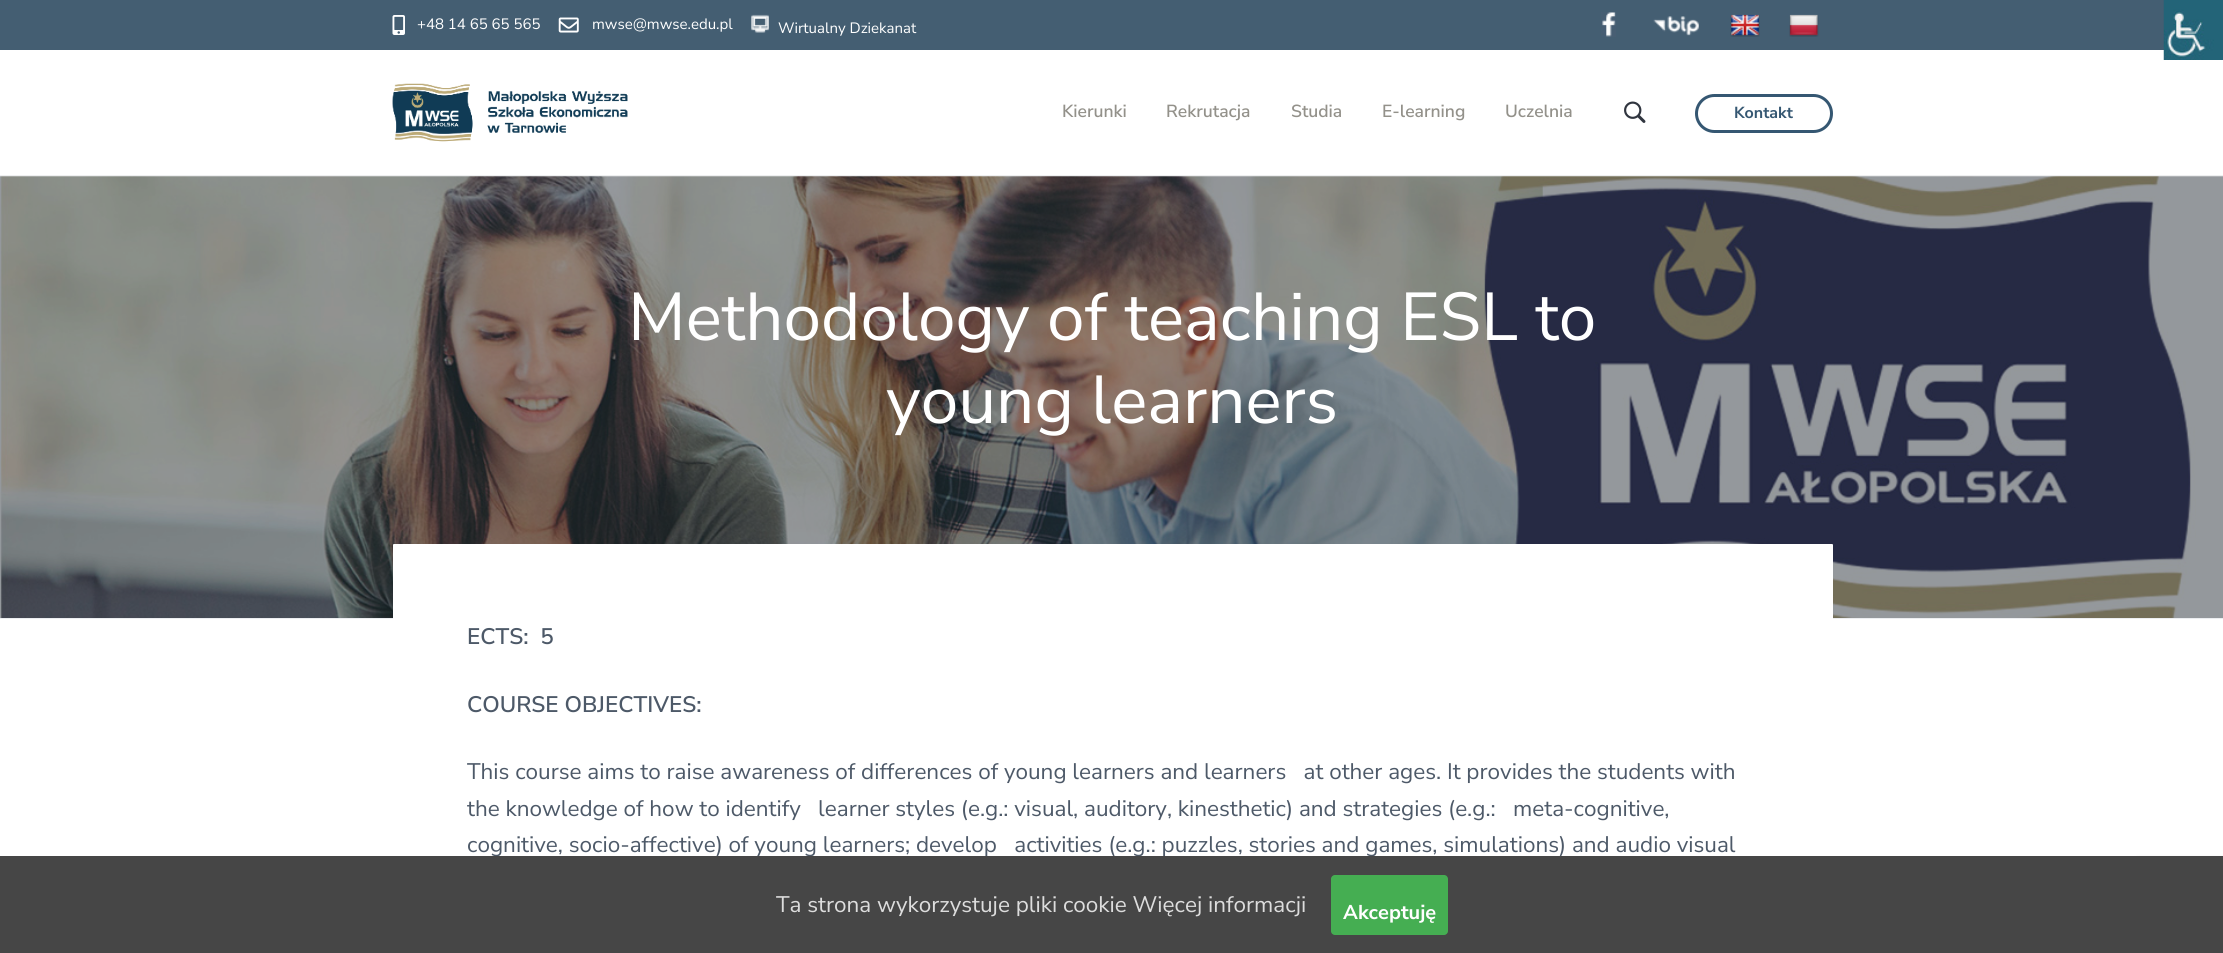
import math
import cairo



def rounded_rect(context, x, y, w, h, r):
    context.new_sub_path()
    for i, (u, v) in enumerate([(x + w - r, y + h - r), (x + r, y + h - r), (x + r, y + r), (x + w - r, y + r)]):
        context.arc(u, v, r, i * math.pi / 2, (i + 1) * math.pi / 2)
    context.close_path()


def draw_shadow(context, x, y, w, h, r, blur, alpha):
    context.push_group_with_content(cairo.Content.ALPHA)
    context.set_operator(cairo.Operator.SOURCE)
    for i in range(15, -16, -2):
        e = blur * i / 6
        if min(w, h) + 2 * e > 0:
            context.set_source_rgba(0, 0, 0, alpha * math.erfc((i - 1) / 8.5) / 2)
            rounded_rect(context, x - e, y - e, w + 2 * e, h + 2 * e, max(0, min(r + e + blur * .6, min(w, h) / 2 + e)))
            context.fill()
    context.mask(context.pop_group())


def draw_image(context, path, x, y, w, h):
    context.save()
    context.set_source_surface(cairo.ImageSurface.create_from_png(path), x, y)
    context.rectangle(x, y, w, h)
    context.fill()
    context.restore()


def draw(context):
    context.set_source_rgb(1, 1, 1)
    context.paint()
    context.set_source_rgb(238 / 255, 239 / 255, 240 / 255)
    context.rectangle(0, 175, 2223, 1)
    context.fill()
    context.set_source_rgb(68 / 255, 94 / 255, 114 / 255)
    context.rectangle(0, 0, 2164, 50)
    context.fill()
    draw_image(context, "images/1.png", 392, 15, 13, 20)
    draw_image(context, "images/2.png", 558, 17, 21, 16)
    draw_image(context, "images/3.png", 751, 14, 18, 19)
    draw_image(context, "images/4.png", 1601, 12, 15, 25)
    draw_image(context, "images/5.png", 1653, 16, 46, 20)
    draw_image(context, "images/6.png", 1730, 14, 30, 23)
    draw_image(context, "images/7.png", 1789, 14, 30, 23)
    draw_image(context, "images/8.png", 392, 83, 236, 59)
    draw_image(context, "images/9.png", 1624, 101, 22, 22)
    rounded_rect(context, 1696.5, 95.5, 135, 36, 18)
    context.set_source_rgb(53 / 255, 87 / 255, 114 / 255)
    context.set_line_width(3)
    context.stroke()
    draw_image(context, "images/10.png", 0, 176, 2223, 442)
    context.set_source_rgb(236 / 255, 238 / 255, 241 / 255)
    context.rectangle(0, 618, 2223, 1)
    context.fill()
    context.set_source_rgb(1, 1, 1)
    rounded_rect(context, 393, 544, 1440, 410, 1)
    context.fill()
    draw_image(context, "images/11.png", 2163, 0, 60, 60)
    context.set_source_rgb(128 / 255, 128 / 255, 128 / 255)
    draw_shadow(context, 2136, 861, 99, 75, 2.5, 3, 1)
    context.select_font_face("Nunito Sans")
    context.set_font_size(15)
    context.set_source_rgb(1, 1, 1)
    context.move_to(417, 29)
    context.show_text("+48 14 65 65 565")
    context.move_to(592, 29)
    context.show_text("mwse@mwse.edu.pl")
    context.move_to(778, 33)
    context.show_text("Wirtualny Dziekanat")
    context.select_font_face("Nunito Sans SemiBold")
    context.set_font_size(17.5)
    context.set_source_rgb(147 / 255, 145 / 255, 138 / 255)
    context.move_to(1062, 117)
    context.show_text("Kierunki")
    context.move_to(1166, 117)
    context.show_text("Rekrutacja")
    context.move_to(1291, 117)
    context.show_text("Studia")
    context.move_to(1382, 117)
    context.show_text("E-learning")
    context.move_to(1505, 117)
    context.show_text("Uczelnia")
    context.select_font_face("Nunito Sans", cairo.FontSlant.NORMAL, cairo.FontWeight.BOLD)
    context.set_font_size(16)
    context.set_source_rgb(53 / 255, 87 / 255, 114 / 255)
    context.move_to(1734, 118)
    context.show_text("Kontakt")
    context.select_font_face("Nunito Sans")
    context.set_font_size(67.5)
    context.set_source_rgb(1, 1, 1)
    context.move_to(628, 340)
    context.show_text("Methodology of teaching ESL to")
    context.move_to(886, 423)
    context.show_text("young learners")
    context.select_font_face("Nunito Sans SemiBold")
    context.set_font_size(22.5)
    context.set_source_rgb(77 / 255, 89 / 255, 104 / 255)
    context.move_to(467, 644)
    context.show_text("ECTS:  5")
    context.move_to(467, 712)
    context.show_text("COURSE OBJECTIVES:")
    context.select_font_face("Nunito Sans")
    context.move_to(467, 779)
    context.show_text("This course aims to raise awareness of differences of young learners and learners   at other ages. It provides the students with")
    context.move_to(467, 816)
    context.show_text("the knowledge of how to identify   learner styles (e.g.: visual, auditory, kinesthetic) and strategies (e.g.:   meta-cognitive,")
    context.move_to(467, 852)
    context.show_text("cognitive, socio-affective) of young learners; develop   activities (e.g.: puzzles, stories and games, simulations) and audio visual")
    context.set_source_rgb(70 / 255, 70 / 255, 70 / 255)
    context.rectangle(0, 856, 2223, 97)
    context.fill()
    context.set_source_rgb(221 / 255, 221 / 255, 221 / 255)
    context.move_to(776, 912)
    context.show_text("Ta strona wykorzystuje pliki cookie Więcej informacji")
    context.set_source_rgb(69 / 255, 174 / 255, 82 / 255)
    rounded_rect(context, 1331, 875, 117, 60, 4)
    context.fill()
    context.select_font_face("Nunito Sans", cairo.FontSlant.NORMAL, cairo.FontWeight.BOLD)
    context.set_font_size(20)
    context.set_source_rgb(1, 1, 1)
    context.move_to(1343, 919)
    context.show_text("Akceptuję")


surface = cairo.ImageSurface(cairo.Format.RGB24, 2223, 953)
context = cairo.Context(surface)
options = cairo.FontOptions()
options.set_hint_metrics(cairo.HintMetrics.OFF)
options.set_hint_style(cairo.HintStyle.NONE)
context.set_font_options(options)
context.set_miter_limit(4)
draw(context)
surface.write_to_png("out.png")
